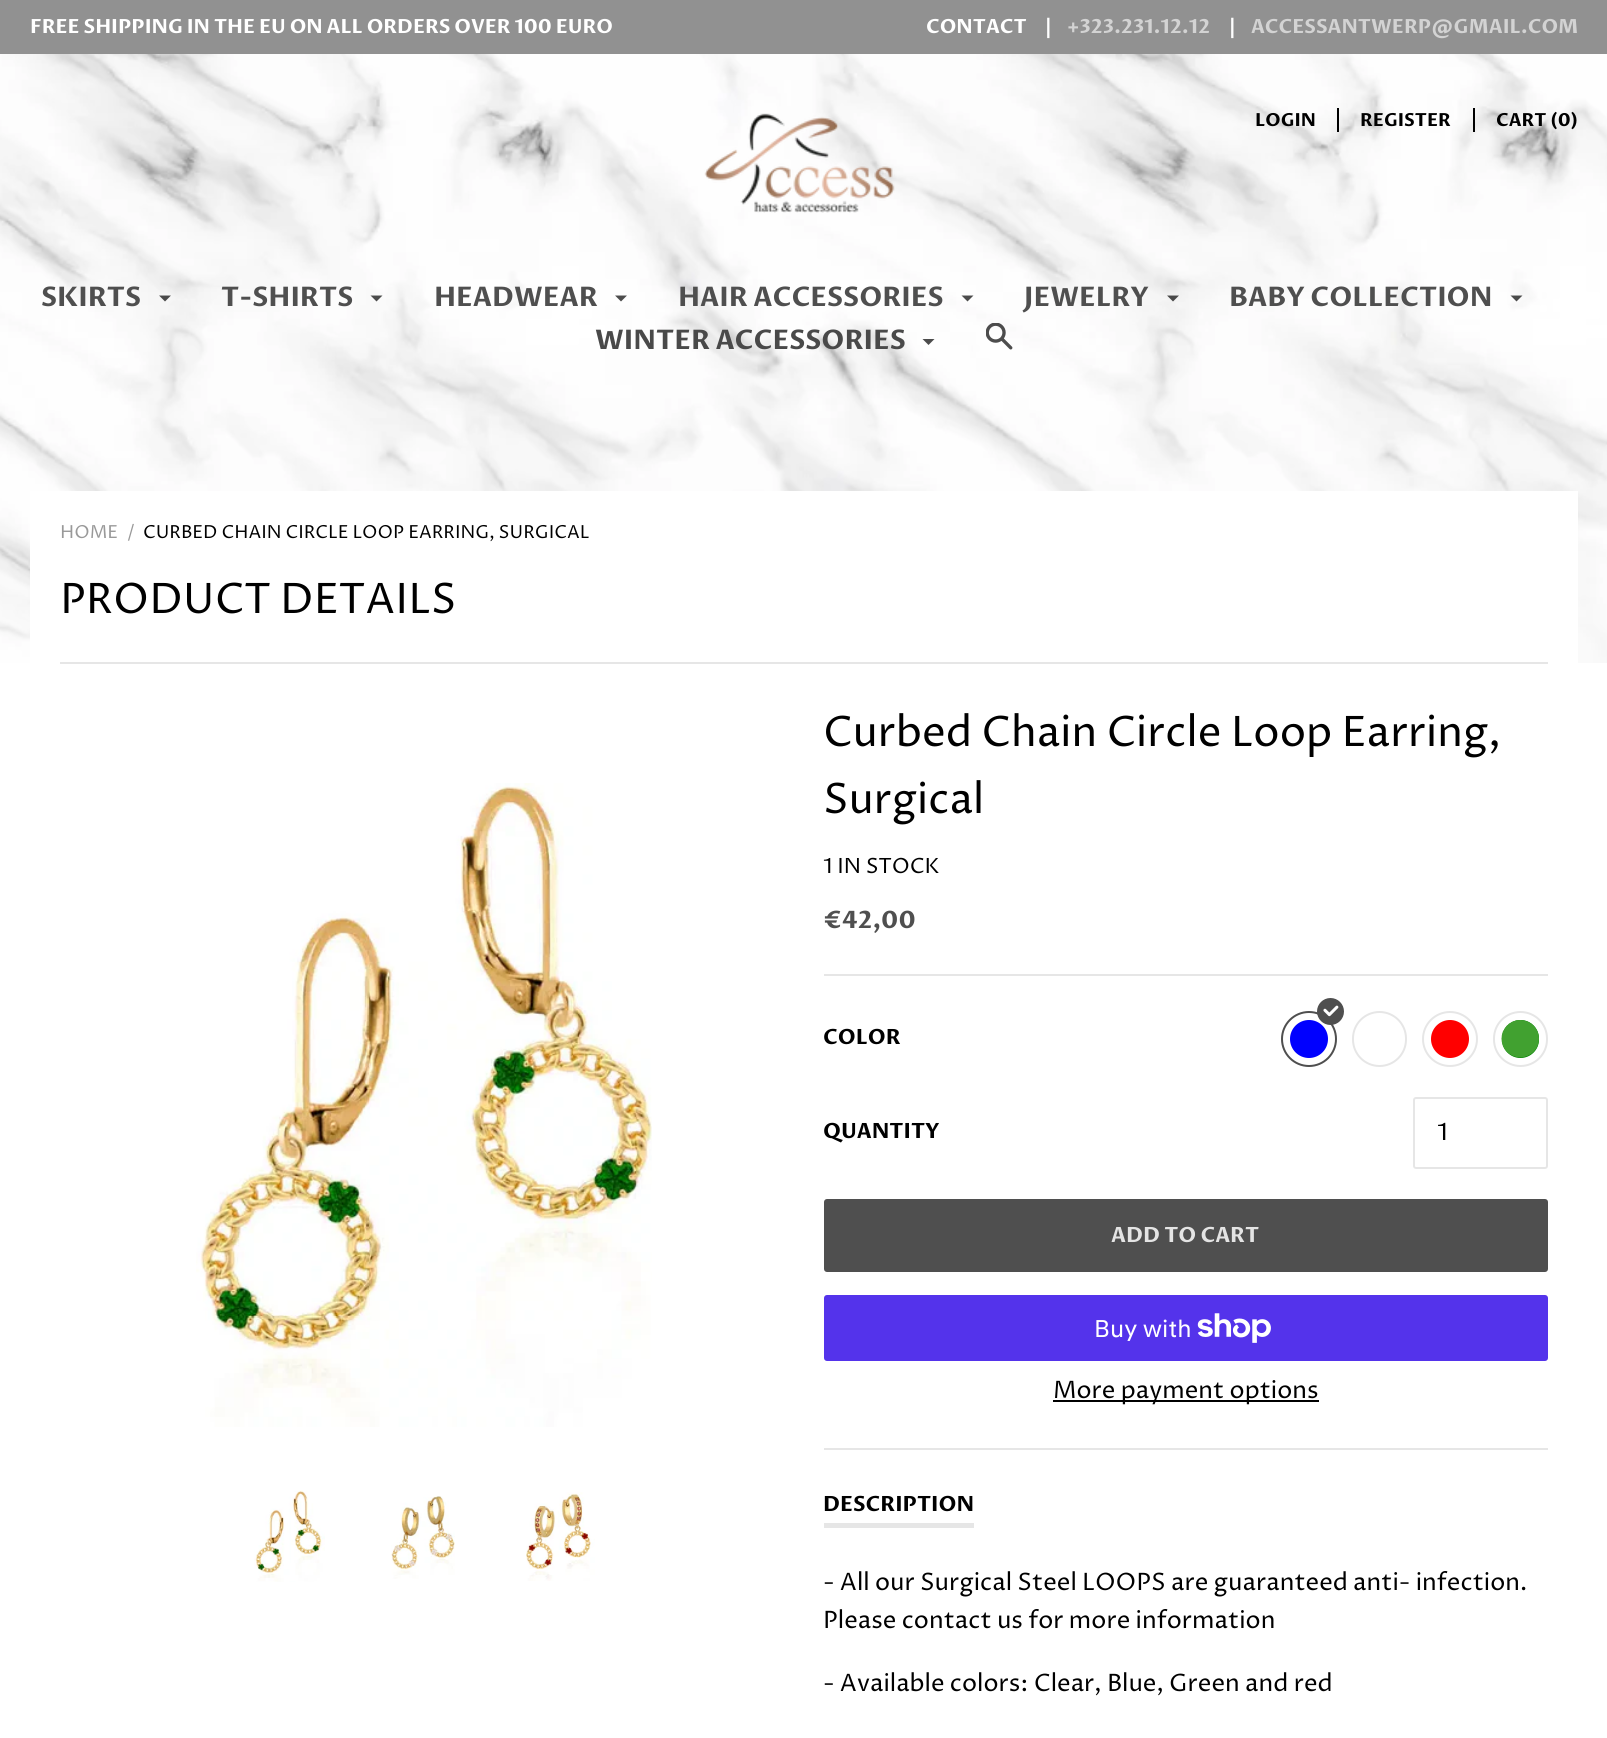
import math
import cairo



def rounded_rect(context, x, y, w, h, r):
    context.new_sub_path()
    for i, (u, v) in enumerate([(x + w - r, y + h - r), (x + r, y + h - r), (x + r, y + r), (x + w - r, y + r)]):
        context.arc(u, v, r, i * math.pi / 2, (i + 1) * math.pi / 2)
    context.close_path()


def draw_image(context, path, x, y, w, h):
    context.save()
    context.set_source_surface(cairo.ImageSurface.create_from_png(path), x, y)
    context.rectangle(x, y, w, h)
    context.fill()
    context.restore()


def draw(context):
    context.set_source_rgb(1, 1, 1)
    context.paint()
    draw_image(context, "images/1.png", 0, 54, 1607, 609)
    context.set_source_rgb(145 / 255, 145 / 255, 145 / 255)
    context.rectangle(0, 0, 1607, 54)
    context.fill()
    draw_image(context, "images/2.png", 704, 113, 191, 100)
    context.set_source_rgb(0, 0, 0)
    context.rectangle(1337, 108, 2, 24)
    context.fill()
    context.rectangle(1473, 108, 2, 24)
    context.fill()
    context.set_source_rgb(74 / 255, 74 / 255, 74 / 255)
    context.new_path()
    context.move_to(159, 295.5)
    context.line_to(171, 295.5)
    context.line_to(165, 301.5)
    context.close_path()
    context.fill()
    context.set_source_rgb(75 / 255, 75 / 255, 75 / 255)
    context.new_path()
    context.move_to(370.5, 295.5)
    context.line_to(382.5, 295.5)
    context.line_to(376.5, 301.5)
    context.close_path()
    context.fill()
    context.set_source_rgb(76 / 255, 76 / 255, 76 / 255)
    context.new_path()
    context.move_to(615, 295.5)
    context.line_to(627, 295.5)
    context.line_to(621, 301.5)
    context.close_path()
    context.fill()
    context.new_path()
    context.move_to(961.5, 295.5)
    context.line_to(973.5, 295.5)
    context.line_to(967.5, 301.5)
    context.close_path()
    context.fill()
    context.set_source_rgb(72 / 255, 72 / 255, 72 / 255)
    context.new_path()
    context.move_to(1167, 295.5)
    context.line_to(1179, 295.5)
    context.line_to(1173, 301.5)
    context.close_path()
    context.fill()
    context.set_source_rgba(0, 0, 0, 0.7)
    context.new_path()
    context.move_to(1510.5, 295.5)
    context.line_to(1522.5, 295.5)
    context.line_to(1516.5, 301.5)
    context.close_path()
    context.fill()
    context.set_source_rgb(76 / 255, 76 / 255, 76 / 255)
    context.new_path()
    context.move_to(922.5, 339)
    context.line_to(934.5, 339)
    context.line_to(928.5, 345)
    context.close_path()
    context.fill()
    draw_image(context, "images/3.png", 986, 323, 27, 27)
    context.set_source_rgb(1, 1, 1)
    context.rectangle(30, 491, 1548, 172)
    context.fill()
    context.set_source_rgb(230 / 255, 230 / 255, 230 / 255)
    context.rectangle(60, 662, 1488, 2)
    context.fill()
    draw_image(context, "images/4.png", 196, 783, 456, 644)
    draw_image(context, "images/5.png", 254, 1490, 71, 92)
    draw_image(context, "images/6.png", 391, 1496, 64, 83)
    draw_image(context, "images/7.png", 526, 1492, 69, 89)
    context.rectangle(824, 974, 724, 2)
    context.fill()
    context.arc(1309, 1039, 27, 0, 2 * math.pi)
    context.set_source_rgb(79 / 255, 79 / 255, 79 / 255)
    context.stroke()
    context.set_source_rgb(0, 0, 1)
    context.arc(1309, 1039, 19, 0, 2 * math.pi)
    context.fill()
    context.set_source_rgb(79 / 255, 79 / 255, 79 / 255)
    context.arc(1330.5, 1011.5, 13.5, 0, 2 * math.pi)
    context.fill()
    draw_image(context, "images/8.png", 1323, 1005, 16, 12)
    rounded_rect(context, 1353, 1012, 53, 54, 26.5)
    context.set_source_rgb(230 / 255, 230 / 255, 230 / 255)
    context.stroke()
    context.arc(1450, 1039, 27, 0, 2 * math.pi)
    context.stroke()
    context.set_source_rgb(1, 0, 0)
    context.arc(1450, 1039, 19, 0, 2 * math.pi)
    context.fill()
    rounded_rect(context, 1494, 1012, 53, 54, 26.5)
    context.set_source_rgb(230 / 255, 230 / 255, 230 / 255)
    context.stroke()
    context.set_source_rgb(0, 128 / 255, 0)
    rounded_rect(context, 1502, 1020, 37, 38, 18.5)
    context.fill()
    draw_image(context, "images/9.png", 1501, 1020, 38, 38)
    rounded_rect(context, 1414, 1098, 133, 70, 2)
    context.set_source_rgb(230 / 255, 230 / 255, 230 / 255)
    context.stroke()
    context.set_source_rgb(79 / 255, 79 / 255, 79 / 255)
    rounded_rect(context, 824, 1199, 724, 73, 3)
    context.fill()
    context.set_source_rgb(84 / 255, 51 / 255, 235 / 255)
    rounded_rect(context, 824, 1295, 724, 66, 3)
    context.fill()
    draw_image(context, "images/10.png", 1197, 1313, 74, 30)
    context.set_source_rgb(0, 0, 0)
    context.rectangle(1053, 1400, 266, 2)
    context.fill()
    context.set_source_rgb(230 / 255, 230 / 255, 230 / 255)
    context.rectangle(824, 1448, 724, 2)
    context.fill()
    context.rectangle(824, 1523, 150, 5)
    context.fill()
    context.select_font_face("Proza Libre", cairo.FontSlant.NORMAL, cairo.FontWeight.BOLD)
    context.set_font_size(19.5)
    context.set_source_rgb(1, 1, 1)
    context.move_to(30, 33)
    context.show_text("FREE SHIPPING IN THE EU ON ALL ORDERS OVER 100 EURO")
    context.move_to(926, 33)
    context.show_text("CONTACT")
    context.move_to(1045, 33)
    context.show_text("|")
    context.set_source_rgb(211 / 255, 211 / 255, 211 / 255)
    context.move_to(1067, 33)
    context.show_text("+323.231.12.12")
    context.set_source_rgb(1, 1, 1)
    context.move_to(1229, 33)
    context.show_text("|")
    context.set_source_rgb(211 / 255, 211 / 255, 211 / 255)
    context.move_to(1251, 33)
    context.show_text("ACCESSANTWERP@GMAIL.COM")
    context.set_font_size(18)
    context.set_source_rgb(0, 0, 0)
    context.move_to(1255, 126)
    context.show_text("LOGIN")
    context.move_to(1360, 126)
    context.show_text("REGISTER")
    context.move_to(1496, 126)
    context.show_text("CART (0)")
    context.set_font_size(27)
    context.set_source_rgb(79 / 255, 79 / 255, 79 / 255)
    context.move_to(41, 306)
    context.show_text("SKIRTS")
    context.move_to(221, 306)
    context.show_text("T-SHIRTS")
    context.move_to(434, 306)
    context.show_text("HEADWEAR")
    context.move_to(678, 306)
    context.show_text("HAIR ACCESSORIES")
    context.move_to(1024, 306)
    context.show_text("JEWELRY")
    context.move_to(1229, 306)
    context.show_text("BABY COLLECTION")
    context.set_source_rgb(73 / 255, 73 / 255, 73 / 255)
    context.move_to(595, 349)
    context.show_text("WINTER ACCESSORIES")
    context.select_font_face("Proza Libre")
    context.set_font_size(18)
    context.set_source_rgb(153 / 255, 153 / 255, 153 / 255)
    context.move_to(60, 538)
    context.show_text("HOME")
    context.move_to(127, 538)
    context.show_text("/")
    context.set_source_rgb(0, 0, 0)
    context.move_to(143, 538)
    context.show_text("CURBED CHAIN CIRCLE LOOP EARRING, SURGICAL")
    context.set_font_size(42)
    context.move_to(60, 613)
    context.show_text("PRODUCT DETAILS")
    context.move_to(823, 746)
    context.show_text("Curbed Chain Circle Loop Earring,")
    context.move_to(823, 813)
    context.show_text("Surgical")
    context.set_font_size(21)
    context.move_to(823, 873)
    context.show_text("1 IN STOCK")
    context.select_font_face("Proza Libre", cairo.FontSlant.NORMAL, cairo.FontWeight.BOLD)
    context.set_font_size(24)
    context.set_source_rgb(79 / 255, 79 / 255, 79 / 255)
    context.move_to(823, 928)
    context.show_text("€42,00")
    context.set_font_size(21)
    context.set_source_rgb(0, 0, 0)
    context.move_to(823, 1044)
    context.show_text("COLOR")
    context.move_to(823, 1138)
    context.show_text("QUANTITY")
    context.select_font_face("Proza Libre")
    context.set_font_size(24)
    context.move_to(1437, 1140)
    context.show_text("1")
    context.select_font_face("Proza Libre", cairo.FontSlant.NORMAL, cairo.FontWeight.BOLD)
    context.set_font_size(21)
    context.set_source_rgb(228 / 255, 228 / 255, 228 / 255)
    context.move_to(1111, 1242)
    context.show_text("ADD TO CART")
    context.select_font_face("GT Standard")
    context.set_font_size(24)
    context.set_source_rgb(1, 1, 1)
    context.move_to(1094, 1337)
    context.show_text("Buy with")
    context.select_font_face("Proza Libre")
    context.set_source_rgb(0, 0, 0)
    context.move_to(1053, 1398)
    context.show_text("More payment options")
    context.select_font_face("Proza Libre", cairo.FontSlant.NORMAL, cairo.FontWeight.BOLD)
    context.set_font_size(21)
    context.move_to(823, 1511)
    context.show_text("DESCRIPTION")
    context.select_font_face("Proza Libre")
    context.set_font_size(24)
    context.move_to(823, 1590)
    context.show_text("- All our Surgical Steel LOOPS are guaranteed anti- infection.")
    context.move_to(823, 1628)
    context.show_text("Please contact us for more information")
    context.move_to(823, 1691)
    context.show_text("- Available colors: Clear, Blue, Green and red")


surface = cairo.ImageSurface(cairo.Format.RGB24, 1607, 1738)
context = cairo.Context(surface)
options = cairo.FontOptions()
options.set_hint_metrics(cairo.HintMetrics.OFF)
options.set_hint_style(cairo.HintStyle.NONE)
context.set_font_options(options)
context.set_miter_limit(4)
draw(context)
surface.write_to_png("out.png")
